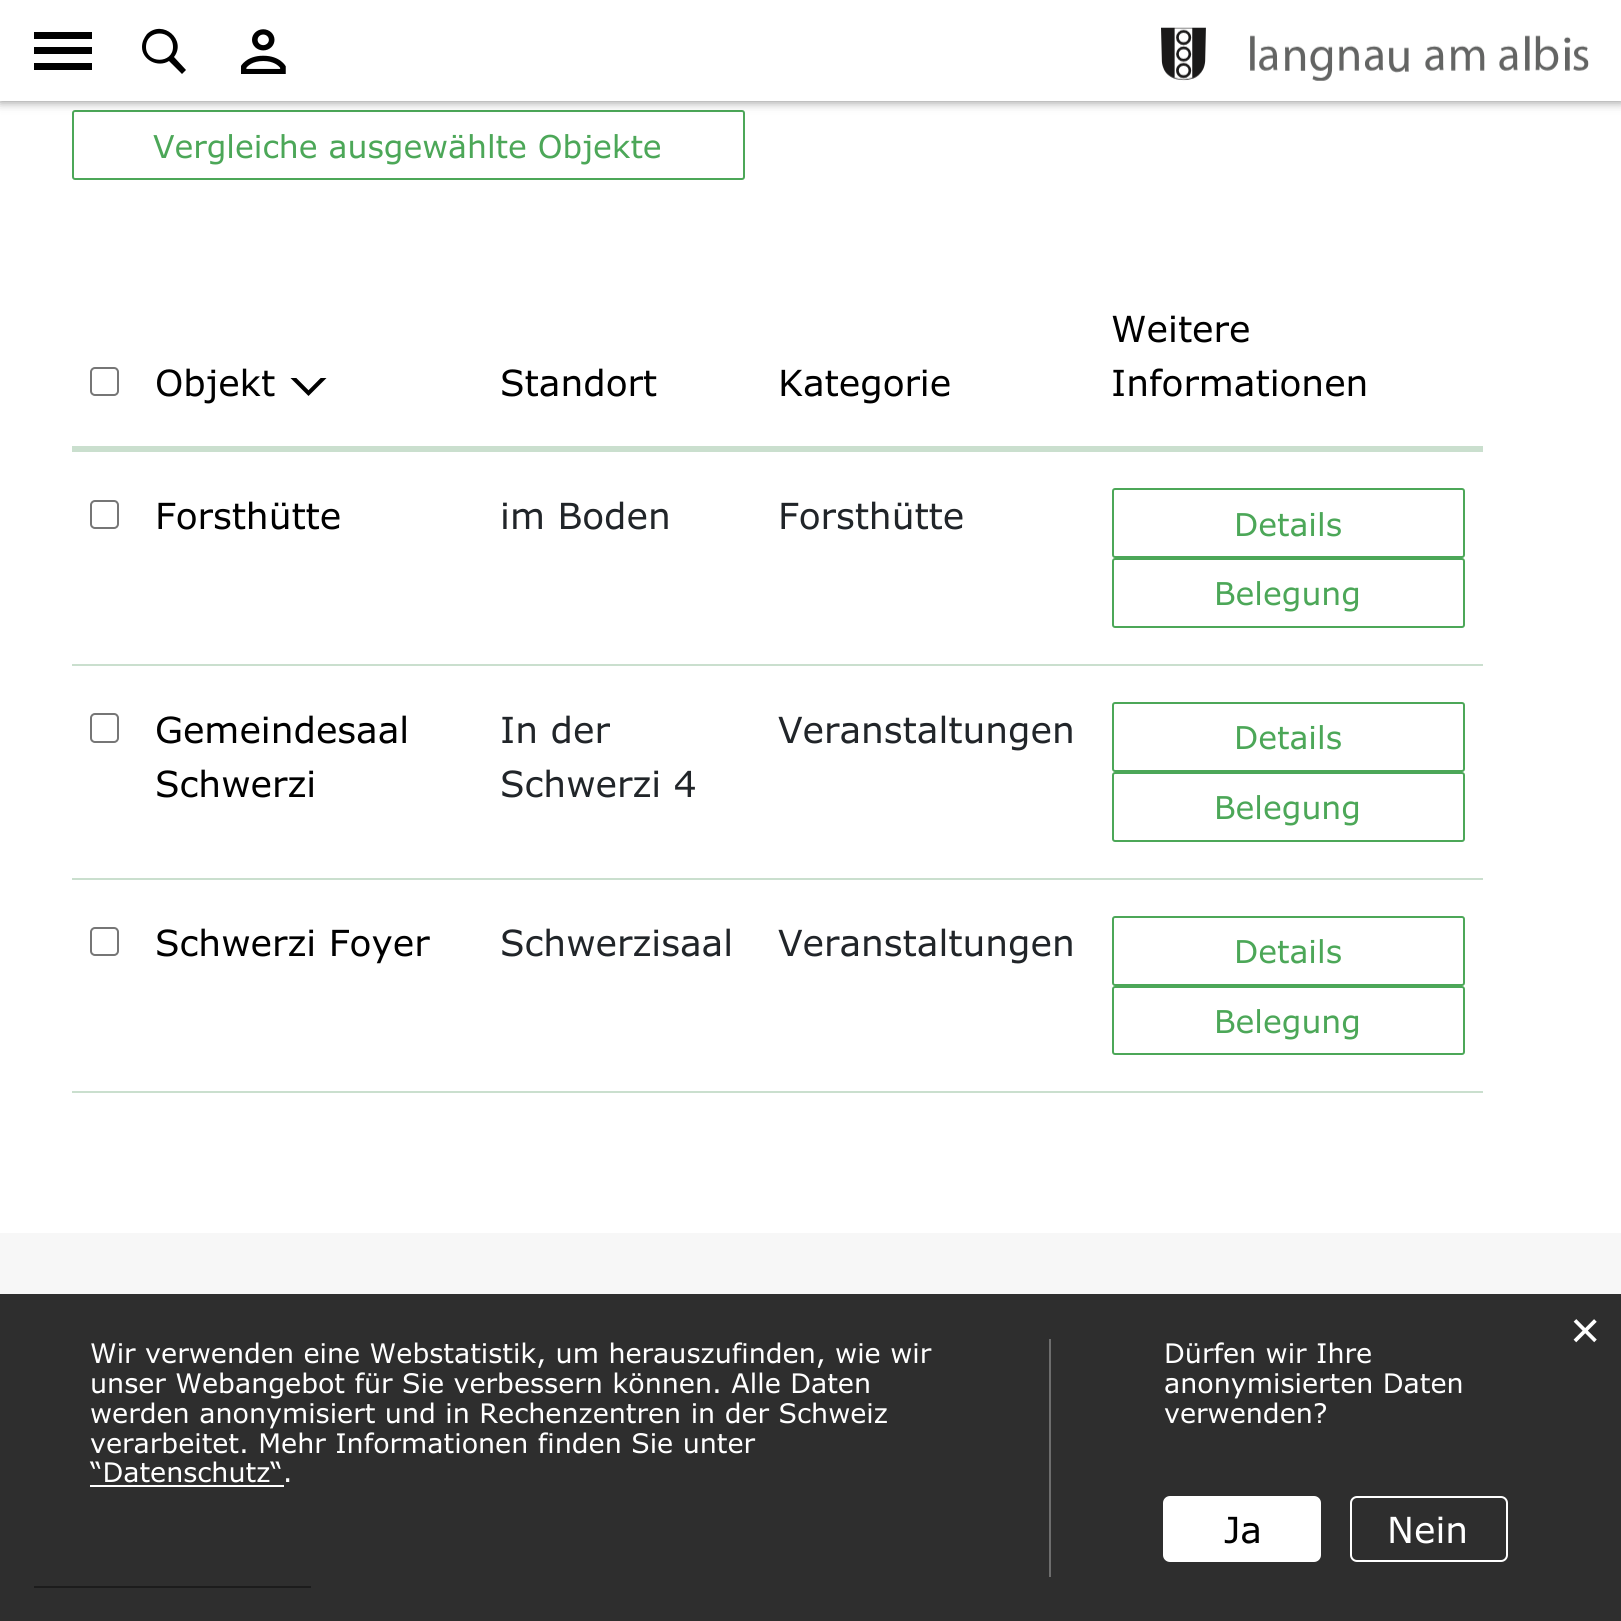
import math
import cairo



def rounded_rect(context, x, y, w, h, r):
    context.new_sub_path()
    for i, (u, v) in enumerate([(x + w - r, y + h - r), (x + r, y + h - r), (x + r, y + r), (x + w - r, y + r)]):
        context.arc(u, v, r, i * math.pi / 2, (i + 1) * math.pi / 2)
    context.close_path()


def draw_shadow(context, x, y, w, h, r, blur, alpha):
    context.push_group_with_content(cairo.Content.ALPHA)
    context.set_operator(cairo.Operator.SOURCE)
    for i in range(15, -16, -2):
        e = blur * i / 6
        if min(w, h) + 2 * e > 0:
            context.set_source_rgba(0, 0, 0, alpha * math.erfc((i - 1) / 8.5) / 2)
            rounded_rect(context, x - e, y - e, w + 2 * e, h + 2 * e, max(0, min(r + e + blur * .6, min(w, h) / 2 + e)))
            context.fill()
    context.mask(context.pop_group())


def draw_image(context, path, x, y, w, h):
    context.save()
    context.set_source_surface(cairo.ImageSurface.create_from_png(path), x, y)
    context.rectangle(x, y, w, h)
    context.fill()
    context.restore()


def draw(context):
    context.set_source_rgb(1, 1, 1)
    context.paint()
    rounded_rect(context, 73, 111, 671, 68, 2)
    context.set_source_rgb(76 / 255, 167 / 255, 88 / 255)
    context.stroke()
    context.set_source_rgb(0, 0, 0)
    draw_shadow(context, 0, 0, 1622, 101, 0, 5.5, 0.5)
    context.set_source_rgb(1, 1, 1)
    context.rectangle(0, 0, 1621, 101)
    context.fill()
    context.set_source_rgb(0, 0, 0)
    context.rectangle(34, 32, 58, 7)
    context.fill()
    context.rectangle(34, 47, 58, 7)
    context.fill()
    context.rectangle(34, 63, 58, 7)
    context.fill()
    context.set_fill_rule(cairo.FillRule.EVEN_ODD)
    context.new_path()
    context.move_to(142, 47)
    context.curve_to(142, 42, 144, 38, 147, 34)
    context.curve_to(163, 19, 187, 40, 174, 57)
    context.line_to(186, 70)
    context.line_to(182, 74)
    context.line_to(169, 61)
    context.curve_to(158, 68, 142, 60, 142, 47)
    context.close_path()
    context.move_to(173, 47)
    context.curve_to(173, 29, 146, 29, 146, 47)
    context.curve_to(146, 64, 173, 64, 173, 47)
    context.close_path()
    context.fill()
    draw_image(context, "images/1.png", 241, 29, 45, 45)
    draw_image(context, "images/2.png", 1161, 27, 428, 54)
    context.set_source_rgb(202 / 255, 223 / 255, 206 / 255)
    context.rectangle(72, 1091, 1411, 2)
    context.fill()
    context.rectangle(72, 446, 65, 6)
    context.fill()
    rounded_rect(context, 91, 368, 27, 27, 4)
    context.set_source_rgb(118 / 255, 118 / 255, 118 / 255)
    context.stroke()
    context.set_source_rgb(202 / 255, 223 / 255, 206 / 255)
    context.rectangle(137, 446, 1346, 5)
    context.fill()
    draw_image(context, "images/3.png", 290, 378, 37, 18)
    rounded_rect(context, 91, 501, 27, 27, 4)
    context.set_source_rgb(118 / 255, 118 / 255, 118 / 255)
    context.stroke()
    context.set_source_rgb(202 / 255, 223 / 255, 206 / 255)
    context.rectangle(137, 451, 1346, 1)
    context.fill()
    rounded_rect(context, 1113, 489, 351, 68, 2)
    context.set_source_rgb(76 / 255, 167 / 255, 88 / 255)
    context.stroke()
    rounded_rect(context, 1113, 559, 351, 68, 2)
    context.stroke()
    context.set_source_rgb(202 / 255, 223 / 255, 206 / 255)
    context.rectangle(72, 664, 1411, 2)
    context.fill()
    rounded_rect(context, 91, 714, 27, 28, 4)
    context.set_source_rgb(118 / 255, 118 / 255, 118 / 255)
    context.stroke()
    rounded_rect(context, 1113, 703, 351, 68, 2)
    context.set_source_rgb(76 / 255, 167 / 255, 88 / 255)
    context.stroke()
    rounded_rect(context, 1113, 773, 351, 68, 2)
    context.stroke()
    context.set_source_rgb(202 / 255, 223 / 255, 206 / 255)
    context.rectangle(72, 878, 1411, 2)
    context.fill()
    rounded_rect(context, 91, 928, 27, 27, 4)
    context.set_source_rgb(118 / 255, 118 / 255, 118 / 255)
    context.stroke()
    rounded_rect(context, 1113, 917, 351, 68, 2)
    context.set_source_rgb(76 / 255, 167 / 255, 88 / 255)
    context.stroke()
    rounded_rect(context, 1113, 987, 351, 67, 2)
    context.stroke()
    context.set_source_rgb(247 / 255, 247 / 255, 247 / 255)
    context.rectangle(0, 1233, 1621, 388)
    context.fill()
    context.set_source_rgb(64 / 255, 64 / 255, 64 / 255)
    context.rectangle(34, 1586, 277, 2)
    context.fill()
    context.set_source_rgba(25 / 255, 25 / 255, 25 / 255, 0.9)
    context.rectangle(0, 1294, 1621, 327)
    context.fill()
    context.set_source_rgb(109 / 255, 109 / 255, 109 / 255)
    context.rectangle(1049, 1339, 2, 238)
    context.fill()
    context.set_source_rgb(1, 1, 1)
    context.rectangle(90, 1485, 194, 2)
    context.fill()
    rounded_rect(context, 1164, 1497, 156, 64, 6)
    context.fill_preserve()
    context.stroke()
    rounded_rect(context, 1351, 1497, 156, 64, 6)
    context.stroke()
    context.select_font_face("Verdana")
    context.set_font_size(31.5)
    context.set_source_rgb(76 / 255, 167 / 255, 88 / 255)
    context.move_to(153, 158)
    context.show_text("Vergleiche ausgewählte Objekte")
    context.set_font_size(36)
    context.set_source_rgb(0, 0, 0)
    context.move_to(1111, 342)
    context.show_text("Weitere")
    context.move_to(1111, 396)
    context.show_text("Informationen")
    context.move_to(155, 396)
    context.show_text("Objekt")
    context.move_to(500, 396)
    context.show_text("Standort")
    context.move_to(778, 396)
    context.show_text("Kategorie")
    context.move_to(155, 529)
    context.show_text("Forsthütte")
    context.set_source_rgb(33 / 255, 37 / 255, 41 / 255)
    context.move_to(500, 529)
    context.show_text("im Boden")
    context.move_to(778, 529)
    context.show_text("Forsthütte")
    context.set_font_size(31.5)
    context.set_source_rgb(76 / 255, 167 / 255, 88 / 255)
    context.move_to(1234, 536)
    context.show_text("Details")
    context.move_to(1214, 605)
    context.show_text("Belegung")
    context.set_font_size(36)
    context.set_source_rgb(0, 0, 0)
    context.move_to(155, 743)
    context.show_text("Gemeindesaal")
    context.move_to(155, 797)
    context.show_text("Schwerzi")
    context.set_source_rgb(33 / 255, 37 / 255, 41 / 255)
    context.move_to(500, 743)
    context.show_text("In der")
    context.move_to(500, 797)
    context.show_text("Schwerzi 4")
    context.move_to(778, 743)
    context.show_text("Veranstaltungen")
    context.set_font_size(31.5)
    context.set_source_rgb(76 / 255, 167 / 255, 88 / 255)
    context.move_to(1234, 749)
    context.show_text("Details")
    context.move_to(1214, 819)
    context.show_text("Belegung")
    context.set_font_size(36)
    context.set_source_rgb(0, 0, 0)
    context.move_to(155, 956)
    context.show_text("Schwerzi Foyer")
    context.set_source_rgb(33 / 255, 37 / 255, 41 / 255)
    context.move_to(500, 956)
    context.show_text("Schwerzisaal")
    context.move_to(778, 956)
    context.show_text("Veranstaltungen")
    context.set_font_size(31.5)
    context.set_source_rgb(76 / 255, 167 / 255, 88 / 255)
    context.move_to(1234, 963)
    context.show_text("Details")
    context.move_to(1214, 1033)
    context.show_text("Belegung")
    context.select_font_face("Liberation Sans")
    context.set_font_size(52)
    context.set_source_rgb(1, 1, 1)
    context.move_to(1570, 1348)
    context.show_text("×")
    context.select_font_face("Verdana")
    context.set_font_size(27)
    context.move_to(90, 1363)
    context.show_text("Wir verwenden eine Webstatistik, um herauszufinden, wie wir")
    context.move_to(90, 1393)
    context.show_text("unser Webangebot für Sie verbessern können. Alle Daten")
    context.move_to(90, 1423)
    context.show_text("werden anonymisiert und in Rechenzentren in der Schweiz")
    context.move_to(90, 1453)
    context.show_text("verarbeitet. Mehr Informationen finden Sie unter")
    context.move_to(90, 1482)
    context.show_text("“Datenschutz“.")
    context.move_to(1164, 1363)
    context.show_text("Dürfen wir Ihre")
    context.move_to(1164, 1393)
    context.show_text("anonymisierten Daten")
    context.move_to(1164, 1423)
    context.show_text("verwenden?")
    context.set_font_size(36)
    context.set_source_rgb(0, 0, 0)
    context.move_to(1224, 1543)
    context.show_text("Ja")
    context.set_source_rgb(1, 1, 1)
    context.move_to(1387, 1543)
    context.show_text("Nein")


surface = cairo.ImageSurface(cairo.Format.RGB24, 1621, 1621)
context = cairo.Context(surface)
options = cairo.FontOptions()
options.set_hint_metrics(cairo.HintMetrics.OFF)
options.set_hint_style(cairo.HintStyle.NONE)
context.set_font_options(options)
context.set_miter_limit(4)
draw(context)
surface.write_to_png("out.png")
